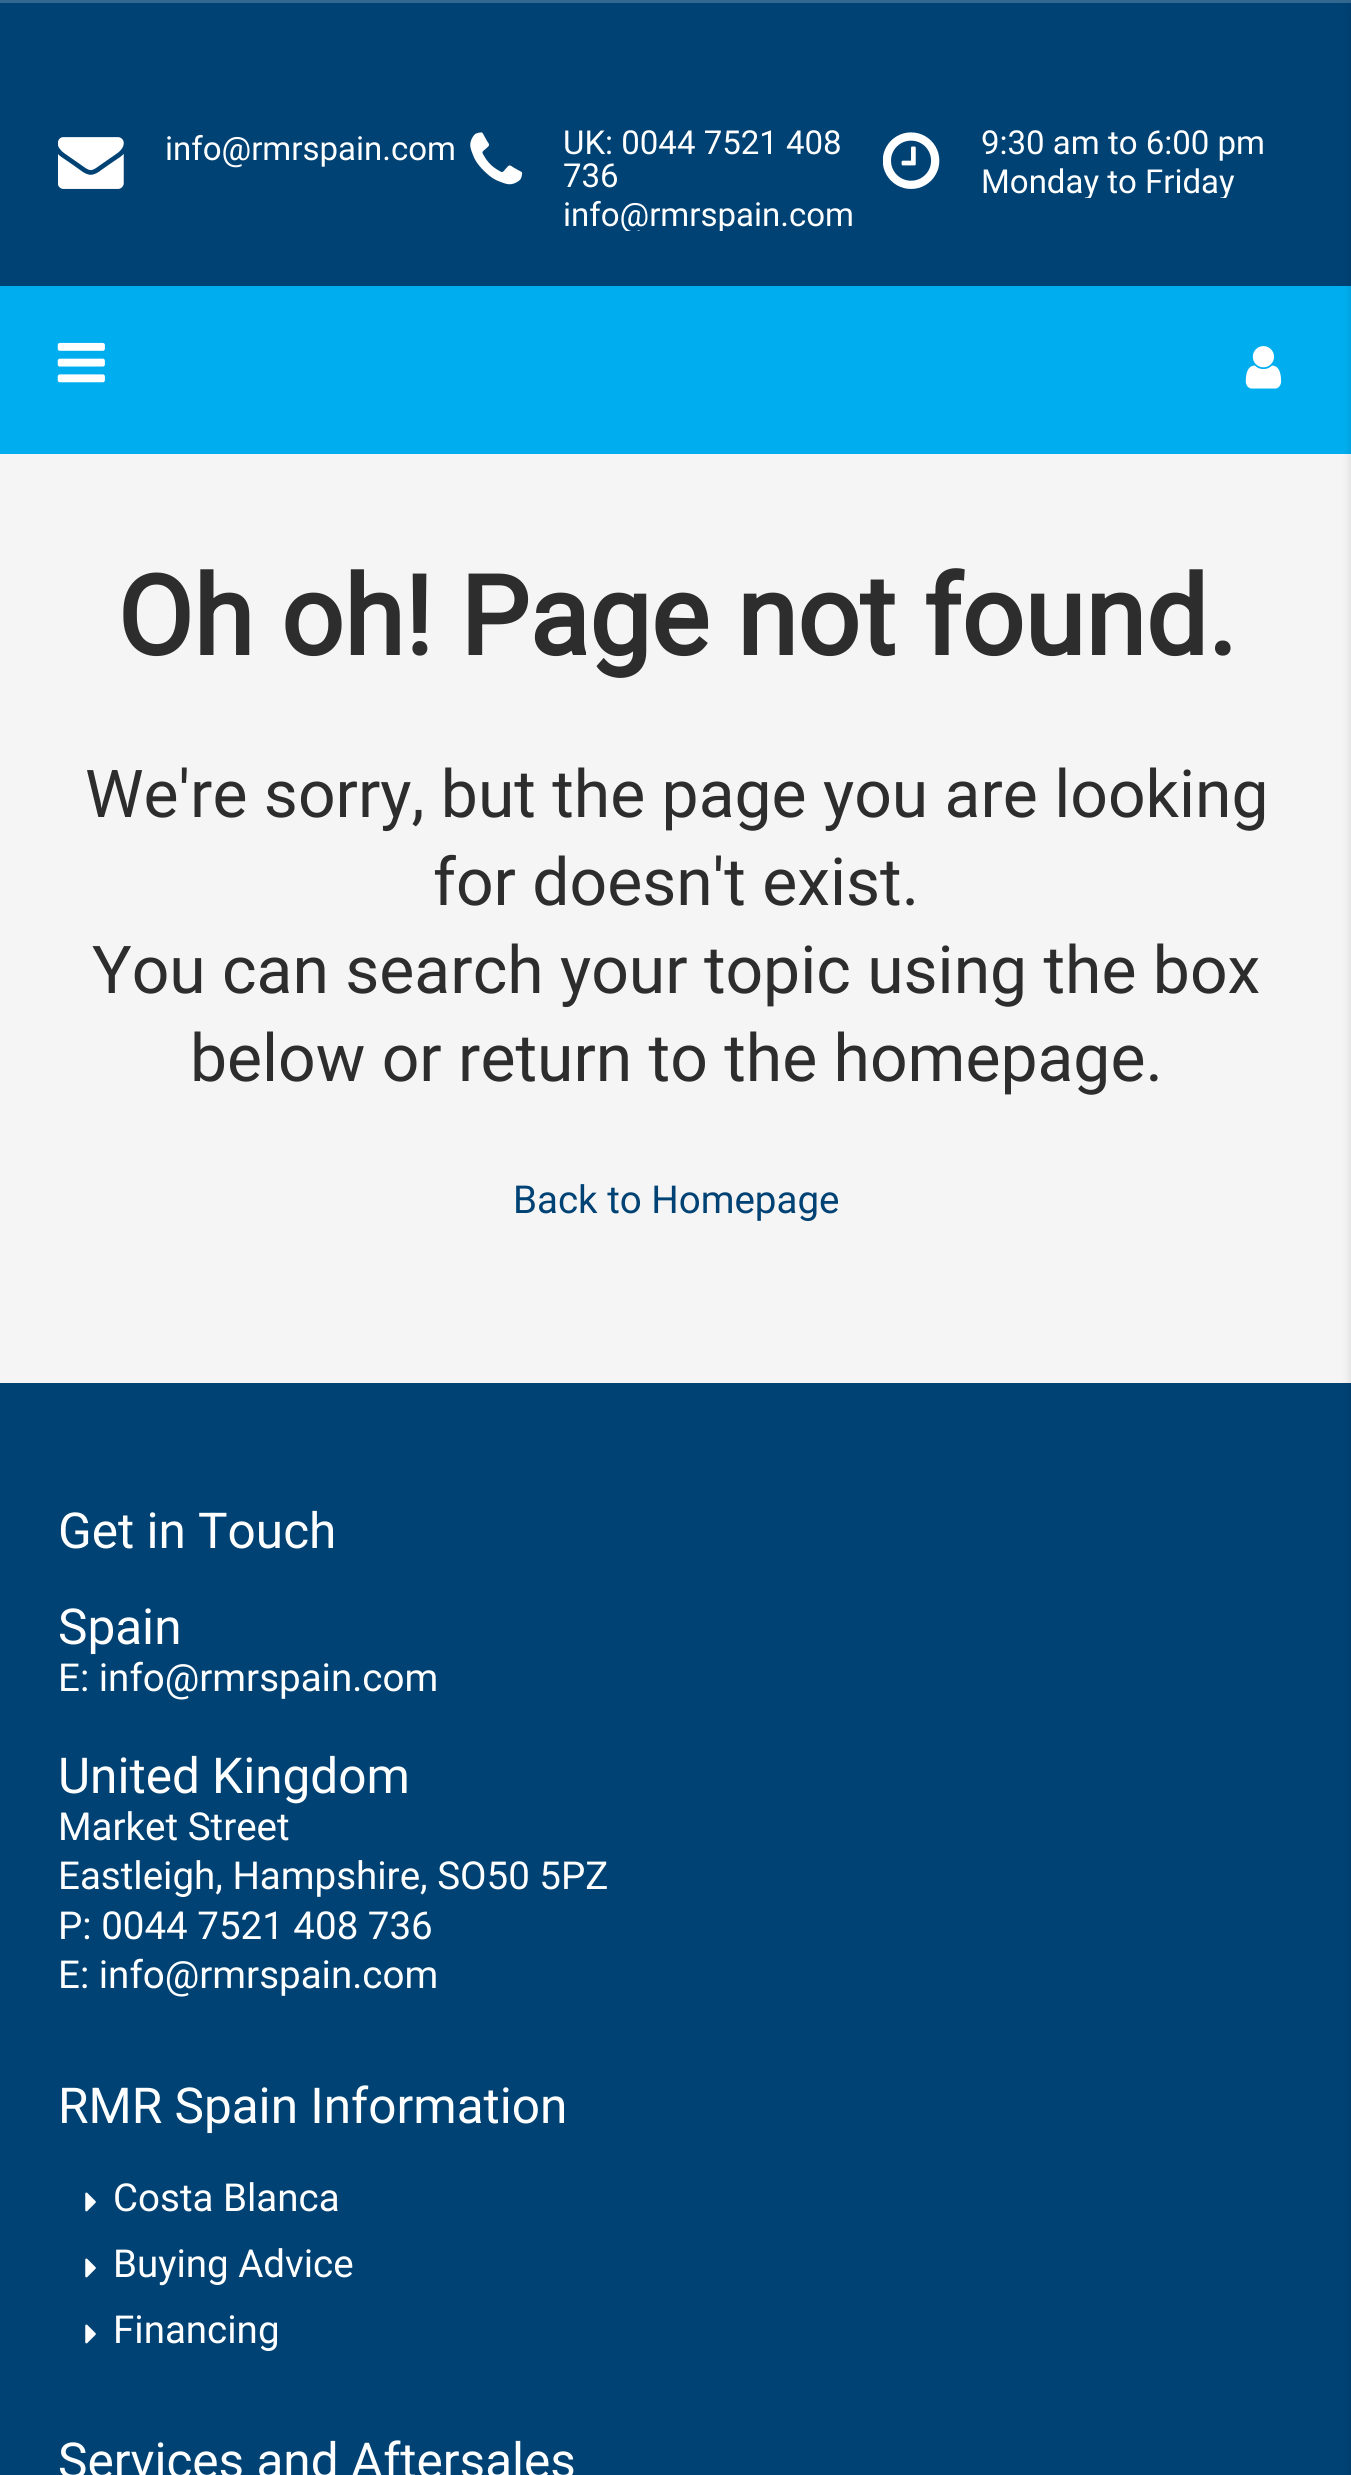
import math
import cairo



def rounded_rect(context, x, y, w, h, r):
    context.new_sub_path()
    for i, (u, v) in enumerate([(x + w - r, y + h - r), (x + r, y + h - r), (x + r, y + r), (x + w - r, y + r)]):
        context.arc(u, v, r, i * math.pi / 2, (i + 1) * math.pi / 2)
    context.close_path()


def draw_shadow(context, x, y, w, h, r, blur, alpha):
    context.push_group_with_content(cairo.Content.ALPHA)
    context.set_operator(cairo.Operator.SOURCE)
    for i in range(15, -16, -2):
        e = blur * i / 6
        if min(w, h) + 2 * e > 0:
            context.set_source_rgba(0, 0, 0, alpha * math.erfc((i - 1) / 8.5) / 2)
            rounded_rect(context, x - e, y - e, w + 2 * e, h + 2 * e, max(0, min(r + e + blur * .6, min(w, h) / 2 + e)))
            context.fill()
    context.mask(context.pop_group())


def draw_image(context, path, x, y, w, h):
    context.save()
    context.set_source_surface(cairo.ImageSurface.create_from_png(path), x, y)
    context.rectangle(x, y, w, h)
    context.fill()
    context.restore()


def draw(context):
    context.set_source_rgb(245 / 255, 245 / 255, 245 / 255)
    context.paint()
    context.set_source_rgb(0, 66 / 255, 116 / 255)
    context.rectangle(0, 3, 1351, 283)
    context.fill()
    context.set_source_rgb(51 / 255, 104 / 255, 144 / 255)
    context.rectangle(0, 0, 1351, 3)
    context.fill()
    draw_image(context, "images/1.png", 58, 137, 66, 52)
    draw_image(context, "images/2.png", 470, 132, 53, 53)
    draw_image(context, "images/3.png", 883, 132, 57, 57)
    context.set_source_rgb(0, 174 / 255, 239 / 255)
    context.rectangle(0, 286, 1351, 168)
    context.fill()
    draw_image(context, "images/4.png", 57, 342, 48, 41)
    draw_image(context, "images/5.png", 1245, 346, 37, 43)
    context.set_source_rgb(0, 66 / 255, 116 / 255)
    context.rectangle(0, 1383, 1351, 1092)
    context.fill()
    context.set_source_rgb(0, 0, 0)
    draw_shadow(context, 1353, 6, 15, 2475, 0, 5.5, 0.2)
    draw_image(context, "images/6.png", 85, 2192, 11, 20)
    draw_image(context, "images/6.png", 85, 2258, 11, 20)
    draw_image(context, "images/6.png", 85, 2324, 11, 20)
    context.select_font_face("Roboto")
    context.set_font_size(33)
    context.set_source_rgb(1, 1, 1)
    context.move_to(165, 160)
    context.show_text("info@rmrspain.com")
    context.move_to(563, 154)
    context.show_text("UK: 0044 7521 408")
    context.move_to(563, 187)
    context.show_text("736")
    context.save()
    context.rectangle(564, 127, 319, 104)
    context.clip()
    context.move_to(563, 226)
    context.show_text("info@rmrspain.com")
    context.restore()
    context.move_to(981, 154)
    context.show_text("9:30 am to 6:00 pm")
    context.save()
    context.rectangle(982, 127, 313, 71)
    context.clip()
    context.move_to(981, 193)
    context.show_text("Monday to Friday")
    context.restore()
    context.select_font_face("Roboto", cairo.FontSlant.NORMAL, cairo.FontWeight.BOLD)
    context.set_font_size(110)
    context.set_source_rgb(45 / 255, 45 / 255, 45 / 255)
    context.move_to(117, 655)
    context.show_text("Oh oh! Page not found.")
    context.select_font_face("Roboto")
    context.set_font_size(66)
    context.move_to(85, 817)
    context.show_text("We're sorry, but the page you are looking")
    context.move_to(433, 905)
    context.show_text("for doesn't exist.")
    context.move_to(92, 993)
    context.show_text("You can search your topic using the box")
    context.move_to(190, 1081)
    context.show_text("below or return to the homepage.")
    context.set_font_size(38.5)
    context.set_source_rgb(0, 66 / 255, 116 / 255)
    context.move_to(513, 1213)
    context.show_text("Back to Homepage")
    context.set_font_size(49.5)
    context.set_source_rgb(1, 1, 1)
    context.move_to(58, 1548)
    context.show_text("Get in Touch")
    context.move_to(58, 1644)
    context.show_text("Spain")
    context.set_font_size(38.5)
    context.move_to(58, 1691)
    context.show_text("E: info@rmrspain.com")
    context.set_font_size(49.5)
    context.move_to(58, 1793)
    context.show_text("United Kingdom")
    context.set_font_size(38.5)
    context.move_to(58, 1840)
    context.show_text("Market Street")
    context.move_to(58, 1889)
    context.show_text("Eastleigh, Hampshire, SO50 5PZ")
    context.move_to(58, 1939)
    context.show_text("P: 0044 7521 408 736")
    context.move_to(58, 1988)
    context.show_text("E: info@rmrspain.com")
    context.set_font_size(49.5)
    context.move_to(58, 2123)
    context.show_text("RMR Spain Information")
    context.set_font_size(38.5)
    context.move_to(113, 2211)
    context.show_text("Costa Blanca")
    context.move_to(113, 2277)
    context.show_text("Buying Advice")
    context.move_to(113, 2343)
    context.show_text("Financing")
    context.set_font_size(49.5)
    context.move_to(58, 2478)
    context.show_text("Services and Aftersales")


surface = cairo.ImageSurface(cairo.Format.RGB24, 1351, 2475)
context = cairo.Context(surface)
options = cairo.FontOptions()
options.set_hint_metrics(cairo.HintMetrics.OFF)
options.set_hint_style(cairo.HintStyle.NONE)
context.set_font_options(options)
context.set_miter_limit(4)
draw(context)
surface.write_to_png("out.png")
